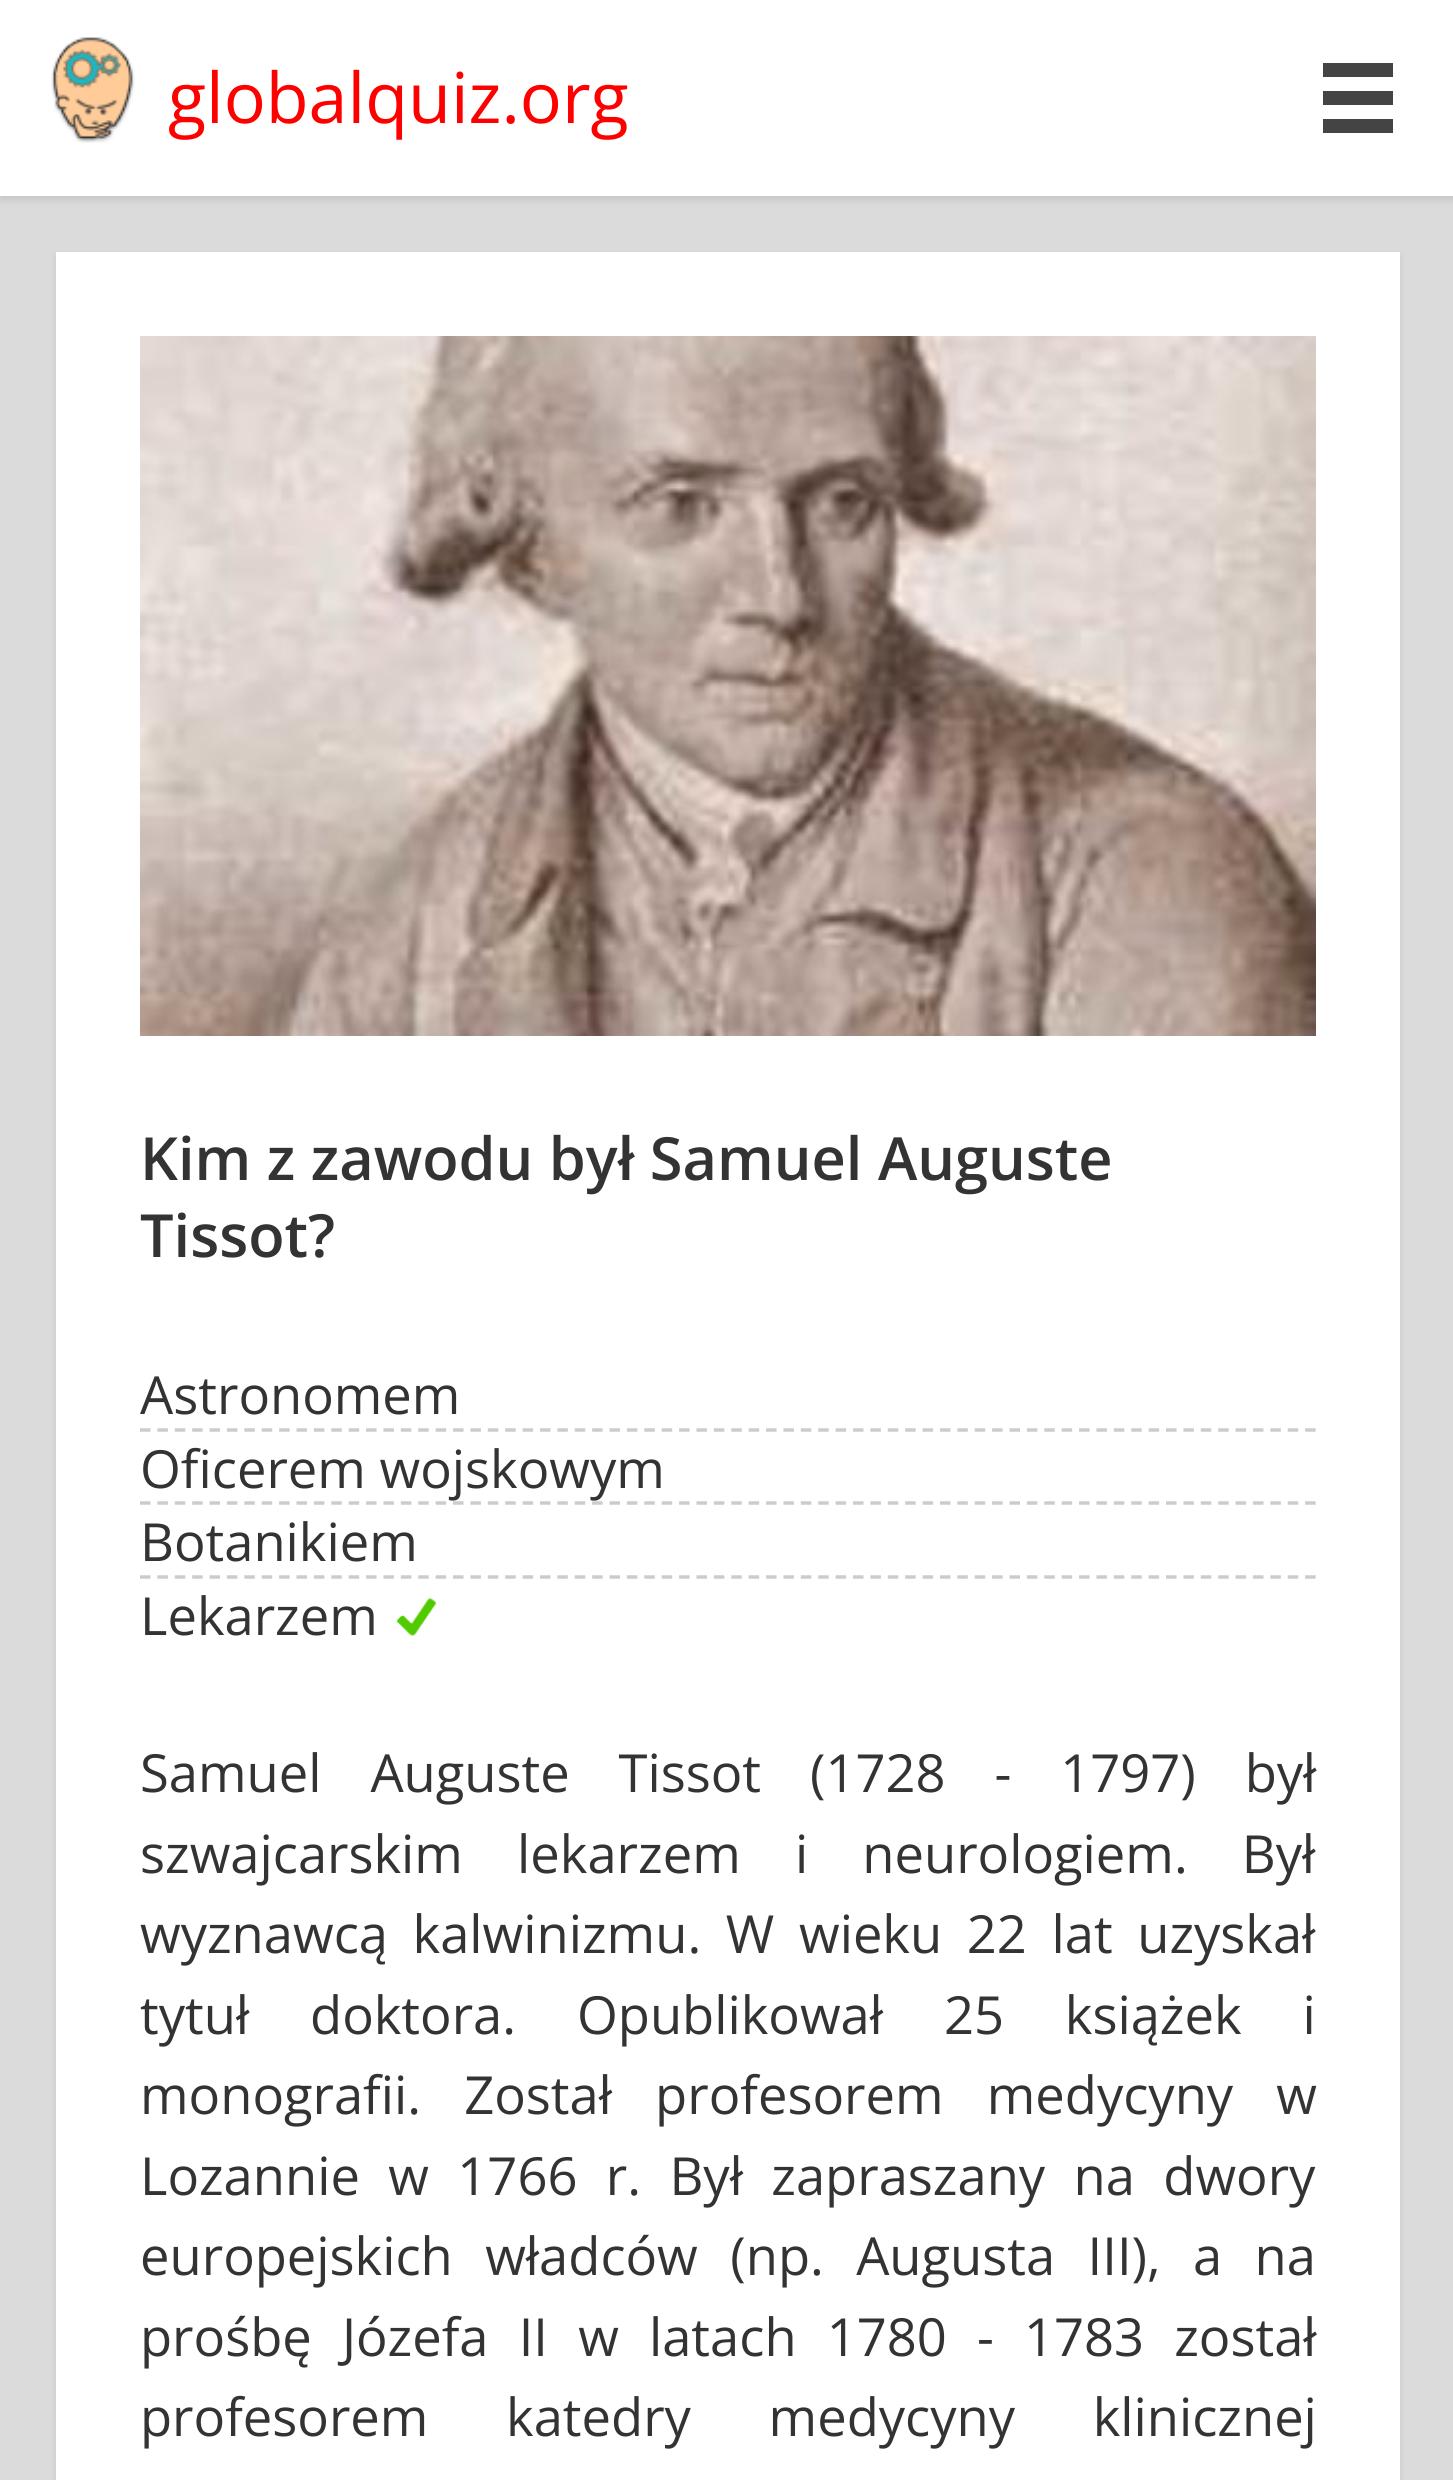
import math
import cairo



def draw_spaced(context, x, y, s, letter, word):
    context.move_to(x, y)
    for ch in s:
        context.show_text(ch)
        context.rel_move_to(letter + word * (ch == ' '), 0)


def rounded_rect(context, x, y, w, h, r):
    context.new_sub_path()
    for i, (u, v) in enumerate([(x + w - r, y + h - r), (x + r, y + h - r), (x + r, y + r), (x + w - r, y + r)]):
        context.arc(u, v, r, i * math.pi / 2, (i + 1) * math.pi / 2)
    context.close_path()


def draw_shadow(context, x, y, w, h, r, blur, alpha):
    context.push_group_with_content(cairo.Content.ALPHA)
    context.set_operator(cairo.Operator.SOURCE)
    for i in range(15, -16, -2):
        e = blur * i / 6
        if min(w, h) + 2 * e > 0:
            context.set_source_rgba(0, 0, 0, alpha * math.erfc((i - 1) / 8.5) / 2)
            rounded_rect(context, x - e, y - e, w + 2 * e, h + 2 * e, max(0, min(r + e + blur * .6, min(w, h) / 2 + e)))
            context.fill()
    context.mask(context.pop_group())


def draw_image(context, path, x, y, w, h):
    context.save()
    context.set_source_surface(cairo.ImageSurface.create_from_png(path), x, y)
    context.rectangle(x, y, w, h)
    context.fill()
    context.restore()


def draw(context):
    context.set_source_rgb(219 / 255, 219 / 255, 219 / 255)
    context.paint()
    context.set_source_rgb(0, 0, 0)
    draw_shadow(context, 0, 4, 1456, 196, 0, 3.5, 0.1)
    context.set_source_rgb(1, 1, 1)
    context.rectangle(0, 0, 1393, 196)
    context.fill()
    draw_image(context, "images/1.png", 51, 37, 84, 106)
    context.set_source_rgb(68 / 255, 68 / 255, 68 / 255)
    context.rectangle(1323, 63, 70, 14)
    context.fill()
    context.rectangle(1323, 91, 70, 14)
    context.fill()
    context.rectangle(1323, 119, 70, 14)
    context.fill()
    context.rectangle(1291.5, 31.5, 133, 133)
    context.set_source_rgb(1, 1, 1)
    context.set_line_width(63)
    context.stroke()
    context.set_source_rgb(0, 0, 0)
    draw_shadow(context, 56, 256, 1344, 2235, 0, 3.5, 0.1)
    context.set_source_rgb(1, 1, 1)
    context.rectangle(56, 252, 1344, 2228)
    context.fill()
    draw_image(context, "images/2.png", 140, 336, 1176, 700)
    context.new_path()
    context.move_to(140, 1430)
    context.line_to(1316, 1430)
    context.set_source_rgb(204 / 255, 204 / 255, 204 / 255)
    context.set_line_width(3.5)
    context.set_dash([10.5, 6.89])
    context.stroke()
    context.new_path()
    context.move_to(140, 1503)
    context.line_to(1316, 1503)
    context.stroke()
    context.new_path()
    context.move_to(140, 1577)
    context.line_to(1316, 1577)
    context.stroke()
    draw_image(context, "images/3.png", 396, 1598, 41, 38)
    context.select_font_face("Open Sans")
    context.set_font_size(70)
    context.set_source_rgb(1, 0, 0)
    context.move_to(168, 123)
    context.show_text("globalquiz.org")
    context.select_font_face("Open Sans SemiBold")
    context.set_font_size(59.5)
    context.set_source_rgb(51 / 255, 51 / 255, 51 / 255)
    context.move_to(140, 1180)
    context.show_text("Kim z zawodu był Samuel Auguste")
    context.move_to(140, 1257)
    context.show_text("Tissot?")
    context.select_font_face("Open Sans")
    context.set_font_size(52.5)
    context.move_to(140, 1414)
    context.show_text("Astronomem")
    context.move_to(140, 1488)
    context.show_text("Oficerem wojskowym")
    context.move_to(140, 1561)
    context.show_text("Botanikiem")
    context.move_to(140, 1635)
    context.show_text("Lekarzem")
    draw_spaced(context, 140, 1792, "Samuel Auguste Tissot (1728 - 1797) był", 0, 35.25)
    draw_spaced(context, 140, 1873, "szwajcarskim lekarzem i neurologiem. Był", 0, 40.5)
    draw_spaced(context, 140, 1953, "wyznawcą kalwinizmu. W wieku 22 lat uzyskał", 0, 11)
    draw_spaced(context, 140, 2034, "tytuł doktora. Opublikował 25 książek i", 0, 47.25)
    draw_spaced(context, 140, 2114, "monografii. Został profesorem medycyny w", 0, 29.5)
    draw_spaced(context, 140, 2195, "Lozannie w 1766 r. Był zapraszany na dwory", 0, 14.75)
    draw_spaced(context, 140, 2275, "europejskich władców (np. Augusta III), a na", 0, 18.75)
    draw_spaced(context, 140, 2356, "prośbę Józefa II w latach 1780 - 1783 został", 0, 16.5)
    draw_spaced(context, 140, 2436, "profesorem katedry medycyny klinicznej", 0, 64)


surface = cairo.ImageSurface(cairo.Format.RGB24, 1453, 2480)
context = cairo.Context(surface)
options = cairo.FontOptions()
options.set_hint_metrics(cairo.HintMetrics.OFF)
options.set_hint_style(cairo.HintStyle.NONE)
context.set_font_options(options)
context.set_miter_limit(4)
draw(context)
surface.write_to_png("out.png")
